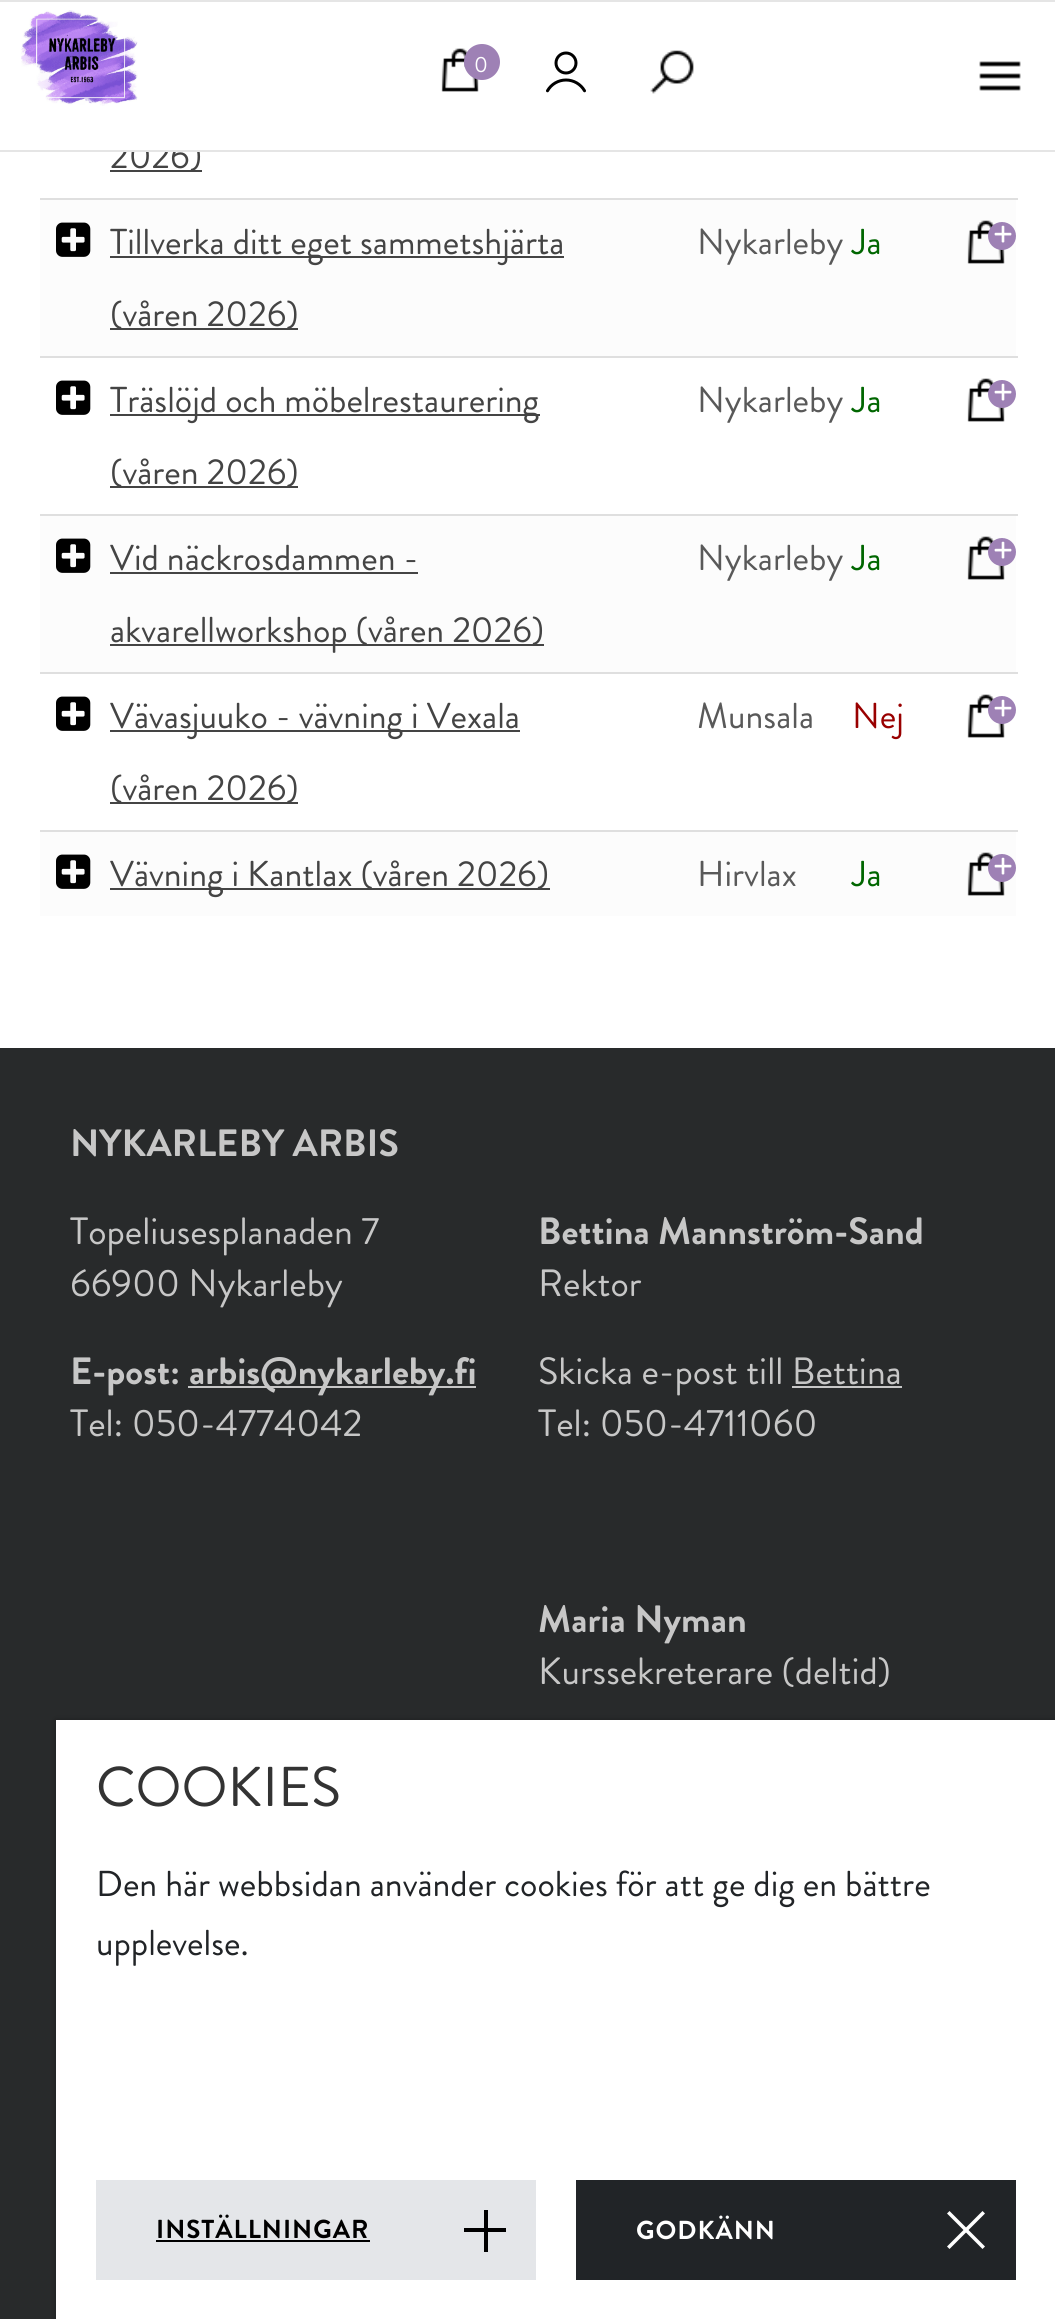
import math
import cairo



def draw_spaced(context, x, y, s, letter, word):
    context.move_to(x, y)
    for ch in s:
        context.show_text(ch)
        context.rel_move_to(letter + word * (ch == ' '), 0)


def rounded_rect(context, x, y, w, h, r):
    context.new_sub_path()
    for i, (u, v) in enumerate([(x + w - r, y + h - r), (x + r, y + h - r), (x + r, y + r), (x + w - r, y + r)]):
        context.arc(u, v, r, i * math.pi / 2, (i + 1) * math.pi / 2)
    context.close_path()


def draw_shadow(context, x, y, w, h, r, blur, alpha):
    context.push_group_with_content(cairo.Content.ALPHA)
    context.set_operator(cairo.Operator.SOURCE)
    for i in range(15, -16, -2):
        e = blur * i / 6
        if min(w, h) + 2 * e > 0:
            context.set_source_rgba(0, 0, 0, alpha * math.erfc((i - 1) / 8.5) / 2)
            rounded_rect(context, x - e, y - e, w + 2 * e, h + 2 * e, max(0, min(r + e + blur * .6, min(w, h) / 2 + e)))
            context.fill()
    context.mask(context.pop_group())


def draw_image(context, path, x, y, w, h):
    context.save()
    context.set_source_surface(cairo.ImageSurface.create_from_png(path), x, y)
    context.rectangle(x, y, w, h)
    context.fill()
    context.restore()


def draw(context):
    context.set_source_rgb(40 / 255, 42 / 255, 43 / 255)
    context.paint()
    context.set_source_rgb(229 / 255, 229 / 255, 229 / 255)
    context.rectangle(0, 0, 1055, 2)
    context.fill()
    context.set_source_rgb(1, 1, 1)
    context.rectangle(0, 152, 1055, 896)
    context.fill()
    context.set_source_rgb(68 / 255, 68 / 255, 68 / 255)
    context.rectangle(110, 170, 92, 2)
    context.fill()
    context.set_source_rgb(252 / 255, 252 / 255, 252 / 255)
    context.rectangle(40, 200, 976, 156)
    context.fill()
    draw_image(context, "images/6.png", 56, 222, 35, 35)
    context.set_source_rgb(68 / 255, 68 / 255, 68 / 255)
    context.rectangle(110, 256, 454, 2)
    context.fill()
    context.rectangle(110, 328, 188, 2)
    context.fill()
    context.set_source_rgb(223 / 255, 223 / 255, 223 / 255)
    context.rectangle(40, 198, 978, 2)
    context.fill()
    draw_image(context, "images/7.png", 967, 220, 38, 44)
    context.set_source_rgb(158 / 255, 129 / 255, 181 / 255)
    context.arc(1002, 236, 14, 0, 2 * math.pi)
    context.fill()
    draw_image(context, "images/8.png", 56, 380, 35, 35)
    context.set_source_rgb(68 / 255, 68 / 255, 68 / 255)
    context.rectangle(110, 414, 430, 2)
    context.fill()
    context.rectangle(110, 486, 188, 2)
    context.fill()
    context.set_source_rgb(223 / 255, 223 / 255, 223 / 255)
    context.rectangle(40, 356, 978, 2)
    context.fill()
    draw_image(context, "images/3.png", 967, 378, 38, 44)
    context.set_source_rgb(158 / 255, 129 / 255, 181 / 255)
    context.arc(1002, 394, 14, 0, 2 * math.pi)
    context.fill()
    context.set_source_rgb(252 / 255, 252 / 255, 252 / 255)
    context.rectangle(40, 516, 976, 156)
    context.fill()
    draw_image(context, "images/6.png", 56, 538, 35, 35)
    context.set_source_rgb(68 / 255, 68 / 255, 68 / 255)
    context.rectangle(110, 572, 308, 2)
    context.fill()
    context.rectangle(110, 644, 434, 2)
    context.fill()
    context.set_source_rgb(223 / 255, 223 / 255, 223 / 255)
    context.rectangle(40, 514, 978, 2)
    context.fill()
    draw_image(context, "images/7.png", 967, 536, 38, 44)
    context.set_source_rgb(158 / 255, 129 / 255, 181 / 255)
    context.arc(1002, 552, 14, 0, 2 * math.pi)
    context.fill()
    draw_image(context, "images/8.png", 56, 696, 35, 35)
    context.set_source_rgb(68 / 255, 68 / 255, 68 / 255)
    context.rectangle(110, 730, 410, 2)
    context.fill()
    context.rectangle(110, 802, 188, 2)
    context.fill()
    context.set_source_rgb(223 / 255, 223 / 255, 223 / 255)
    context.rectangle(40, 672, 978, 2)
    context.fill()
    draw_image(context, "images/3.png", 967, 694, 38, 44)
    context.set_source_rgb(158 / 255, 129 / 255, 181 / 255)
    context.arc(1002, 710, 14, 0, 2 * math.pi)
    context.fill()
    context.set_source_rgb(252 / 255, 252 / 255, 252 / 255)
    context.rectangle(40, 832, 976, 84)
    context.fill()
    draw_image(context, "images/6.png", 56, 854, 35, 35)
    context.set_source_rgb(68 / 255, 68 / 255, 68 / 255)
    context.rectangle(110, 888, 440, 2)
    context.fill()
    context.set_source_rgb(223 / 255, 223 / 255, 223 / 255)
    context.rectangle(40, 830, 978, 2)
    context.fill()
    draw_image(context, "images/7.png", 967, 852, 38, 44)
    context.set_source_rgb(158 / 255, 129 / 255, 181 / 255)
    context.arc(1002, 868, 14, 0, 2 * math.pi)
    context.fill()
    context.set_source_rgb(199 / 255, 199 / 255, 199 / 255)
    context.rectangle(188, 1386, 288, 2)
    context.fill()
    context.rectangle(792, 1386, 110, 2)
    context.fill()
    context.set_source_rgb(0, 0, 0)
    draw_shadow(context, 56, 1720, 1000, 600, 0, 3, 0.29)
    context.set_source_rgb(1, 1, 1)
    context.rectangle(56, 1720, 999, 599)
    context.fill()
    context.set_source_rgb(228 / 255, 230 / 255, 233 / 255)
    context.rectangle(96, 2180, 440, 100)
    context.fill()
    context.set_source_rgb(0, 0, 0)
    context.rectangle(156, 2240, 214, 2)
    context.fill()
    context.rectangle(484, 2210, 4, 42)
    context.fill()
    context.rectangle(464, 2228, 42, 4)
    context.fill()
    context.set_source_rgb(33 / 255, 36 / 255, 39 / 255)
    context.rectangle(576, 2180, 440, 100)
    context.fill()
    context.set_source_rgb(1, 1, 1)
    context.new_path()
    context.move_to(982.5, 2211)
    context.line_to(985, 2213.5)
    context.line_to(949.5, 2249)
    context.line_to(947, 2246.5)
    context.close_path()
    context.fill()
    context.new_path()
    context.move_to(949.5, 2211)
    context.line_to(985, 2246.5)
    context.line_to(982.5, 2249)
    context.line_to(947, 2213.5)
    context.close_path()
    context.fill()
    context.select_font_face("Brandon Grotesque")
    context.set_font_size(36)
    context.set_source_rgb(68 / 255, 68 / 255, 68 / 255)
    context.move_to(110, 168)
    context.show_text("2026)")
    context.set_source_rgb(1, 1, 1)
    context.rectangle(0, 2, 1055, 148)
    context.fill()
    draw_image(context, "images/3.png", 441, 48, 38, 44)
    context.set_source_rgb(158 / 255, 129 / 255, 181 / 255)
    context.arc(482, 62, 18, 0, 2 * math.pi)
    context.fill()
    context.set_font_size(22)
    context.set_source_rgb(1, 1, 1)
    context.move_to(474, 72)
    context.show_text("0")
    draw_image(context, "images/4.png", 546, 51, 40, 42)
    draw_image(context, "images/5.png", 650, 50, 44, 44)
    draw_image(context, "images/1.png", 21, 10, 117, 96)
    draw_image(context, "images/2.png", 979, 61, 42, 30)
    context.set_source_rgb(229 / 255, 229 / 255, 229 / 255)
    context.rectangle(0, 150, 1055, 2)
    context.fill()
    context.set_font_size(36)
    context.set_source_rgb(68 / 255, 68 / 255, 68 / 255)
    context.move_to(110, 254)
    context.show_text("Tillverka ditt eget sammetshjärta")
    context.move_to(110, 326)
    context.show_text("(våren 2026)")
    context.set_source_rgb(89 / 255, 89 / 255, 89 / 255)
    context.move_to(697, 254)
    context.show_text("Nykarleby")
    context.set_source_rgb(0, 102 / 255, 0)
    context.move_to(852, 254)
    context.show_text("Ja")
    context.set_font_size(40)
    context.set_source_rgb(1, 1, 1)
    context.move_to(993, 248)
    context.show_text("+")
    context.set_font_size(36)
    context.set_source_rgb(68 / 255, 68 / 255, 68 / 255)
    context.move_to(110, 412)
    context.show_text("Träslöjd och möbelrestaurering")
    context.move_to(110, 484)
    context.show_text("(våren 2026)")
    context.set_source_rgb(89 / 255, 89 / 255, 89 / 255)
    context.move_to(697, 412)
    context.show_text("Nykarleby")
    context.set_source_rgb(0, 102 / 255, 0)
    context.move_to(852, 412)
    context.show_text("Ja")
    context.set_font_size(40)
    context.set_source_rgb(1, 1, 1)
    context.move_to(993, 406)
    context.show_text("+")
    context.set_font_size(36)
    context.set_source_rgb(68 / 255, 68 / 255, 68 / 255)
    context.move_to(110, 570)
    context.show_text("Vid näckrosdammen -")
    context.move_to(110, 642)
    context.show_text("akvarellworkshop (våren 2026)")
    context.set_source_rgb(89 / 255, 89 / 255, 89 / 255)
    context.move_to(697, 570)
    context.show_text("Nykarleby")
    context.set_source_rgb(0, 102 / 255, 0)
    context.move_to(852, 570)
    context.show_text("Ja")
    context.set_font_size(40)
    context.set_source_rgb(1, 1, 1)
    context.move_to(993, 564)
    context.show_text("+")
    context.set_font_size(36)
    context.set_source_rgb(68 / 255, 68 / 255, 68 / 255)
    context.move_to(110, 728)
    context.show_text("Vävasjuuko - vävning i Vexala")
    context.move_to(110, 800)
    context.show_text("(våren 2026)")
    context.set_source_rgb(89 / 255, 89 / 255, 89 / 255)
    context.move_to(697, 728)
    context.show_text("Munsala")
    context.set_source_rgb(153 / 255, 0, 0)
    context.move_to(852, 728)
    context.show_text("Nej")
    context.set_font_size(40)
    context.set_source_rgb(1, 1, 1)
    context.move_to(993, 722)
    context.show_text("+")
    context.set_font_size(36)
    context.set_source_rgb(68 / 255, 68 / 255, 68 / 255)
    context.move_to(110, 886)
    context.show_text("Vävning i Kantlax (våren 2026)")
    context.set_source_rgb(89 / 255, 89 / 255, 89 / 255)
    context.move_to(697, 886)
    context.show_text("Hirvlax")
    context.set_source_rgb(0, 102 / 255, 0)
    context.move_to(852, 886)
    context.show_text("Ja")
    context.set_font_size(40)
    context.set_source_rgb(1, 1, 1)
    context.move_to(993, 880)
    context.show_text("+")
    context.select_font_face("Brandon Grotesque", cairo.FontSlant.NORMAL, cairo.FontWeight.BOLD)
    context.set_font_size(38)
    context.set_source_rgb(199 / 255, 199 / 255, 199 / 255)
    context.move_to(70, 1156)
    context.show_text("NYKARLEBY ARBIS")
    context.select_font_face("Brandon Grotesque")
    context.move_to(70, 1244)
    context.show_text("Topeliusesplanaden 7")
    context.move_to(70, 1296)
    context.show_text("66900 Nykarleby")
    context.select_font_face("Brandon Grotesque", cairo.FontSlant.NORMAL, cairo.FontWeight.BOLD)
    context.move_to(70, 1384)
    context.show_text("E-post:")
    context.move_to(189, 1384)
    context.show_text("arbis@nykarleby.fi")
    context.select_font_face("Brandon Grotesque")
    context.move_to(70, 1436)
    context.show_text("Tel: 050-4774042")
    context.select_font_face("Brandon Grotesque", cairo.FontSlant.NORMAL, cairo.FontWeight.BOLD)
    context.move_to(538, 1244)
    context.show_text("Bettina Mannström-Sand")
    context.select_font_face("Brandon Grotesque")
    context.move_to(538, 1296)
    context.show_text("Rektor")
    context.move_to(538, 1384)
    context.show_text("Skicka e-post till Bettina")
    context.move_to(538, 1436)
    context.show_text("Tel: 050-4711060")
    context.select_font_face("Brandon Grotesque", cairo.FontSlant.NORMAL, cairo.FontWeight.BOLD)
    context.move_to(538, 1632)
    context.show_text("Maria Nyman")
    context.select_font_face("Brandon Grotesque")
    context.move_to(538, 1684)
    context.show_text("Kurssekreterare (deltid)")
    context.set_font_size(56)
    context.set_source_rgb(51 / 255, 51 / 255, 51 / 255)
    context.move_to(96, 1806)
    context.show_text("COOKIES")
    context.set_font_size(36)
    context.set_source_rgb(33 / 255, 36 / 255, 39 / 255)
    context.move_to(96, 1896)
    context.show_text("Den här webbsidan använder cookies för att ge dig en bättre")
    context.move_to(96, 1955)
    context.show_text("upplevelse.")
    context.select_font_face("Brandon Grotesque", cairo.FontSlant.NORMAL, cairo.FontWeight.BOLD)
    context.set_font_size(26)
    context.set_source_rgb(0, 0, 0)
    draw_spaced(context, 156, 2238, "INSTÄLLNINGAR", 1, 0)
    context.set_source_rgb(1, 1, 1)
    draw_spaced(context, 636, 2239, "GODKÄNN", 1, 0)


surface = cairo.ImageSurface(cairo.Format.RGB24, 1055, 2319)
context = cairo.Context(surface)
options = cairo.FontOptions()
options.set_hint_metrics(cairo.HintMetrics.OFF)
options.set_hint_style(cairo.HintStyle.NONE)
context.set_font_options(options)
context.set_miter_limit(4)
draw(context)
surface.write_to_png("out.png")
